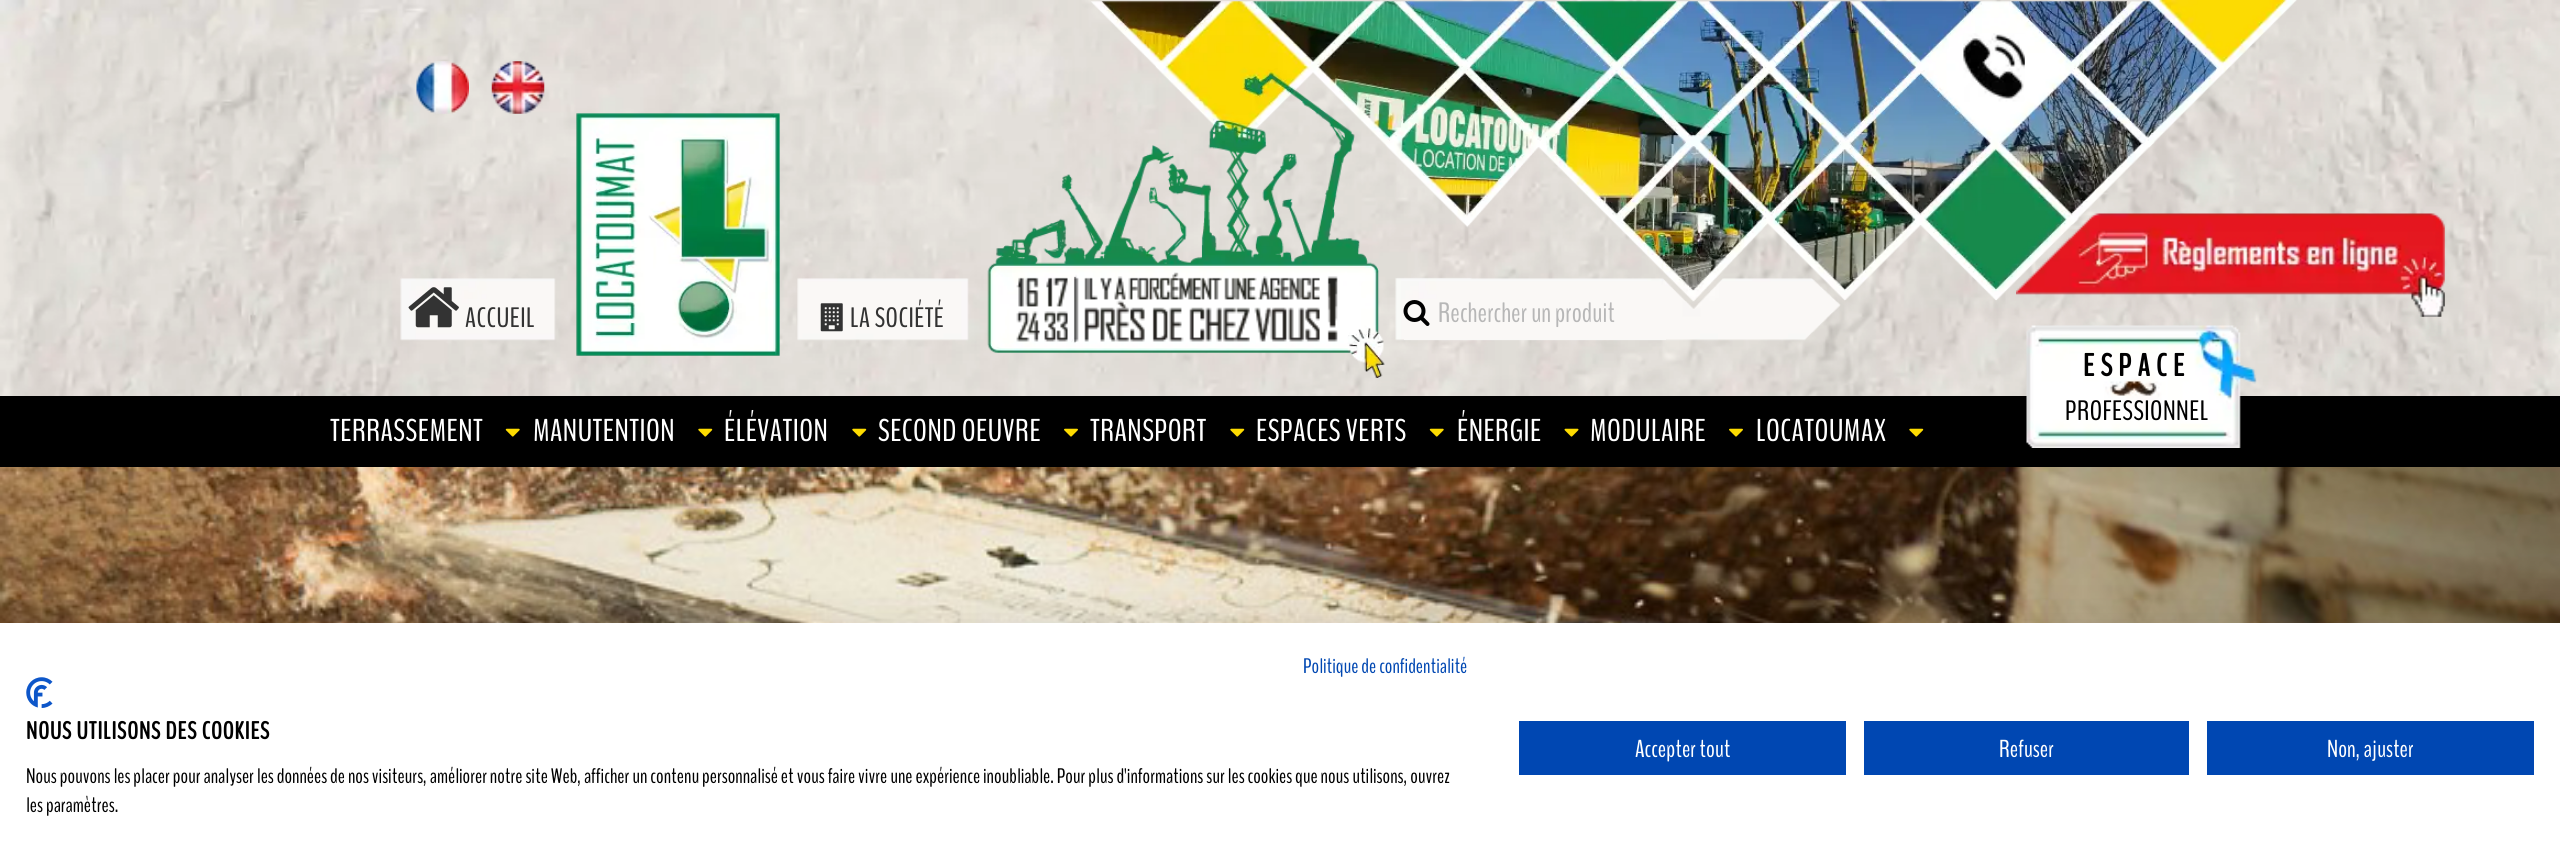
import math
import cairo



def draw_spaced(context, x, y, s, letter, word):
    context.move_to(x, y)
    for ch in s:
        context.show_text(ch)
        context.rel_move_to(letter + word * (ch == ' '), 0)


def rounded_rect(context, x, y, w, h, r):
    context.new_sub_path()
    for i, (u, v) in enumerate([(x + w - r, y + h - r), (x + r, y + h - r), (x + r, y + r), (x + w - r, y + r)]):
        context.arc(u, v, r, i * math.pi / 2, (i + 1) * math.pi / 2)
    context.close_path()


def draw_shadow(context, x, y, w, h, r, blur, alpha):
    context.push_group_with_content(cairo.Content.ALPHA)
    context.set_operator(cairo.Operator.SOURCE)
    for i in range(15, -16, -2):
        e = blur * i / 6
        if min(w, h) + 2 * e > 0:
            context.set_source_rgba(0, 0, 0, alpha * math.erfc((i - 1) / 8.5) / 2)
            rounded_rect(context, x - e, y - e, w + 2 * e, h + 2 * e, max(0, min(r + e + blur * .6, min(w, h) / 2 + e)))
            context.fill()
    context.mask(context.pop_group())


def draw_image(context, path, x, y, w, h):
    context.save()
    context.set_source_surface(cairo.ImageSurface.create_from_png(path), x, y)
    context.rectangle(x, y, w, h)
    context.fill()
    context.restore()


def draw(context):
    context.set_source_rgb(1, 1, 1)
    context.paint()
    draw_image(context, "images/1.png", 0, 0, 2560, 396)
    draw_image(context, "images/2.png", 400, 0, 1897, 378)
    draw_image(context, "images/3.png", 416, 61, 53, 53)
    draw_image(context, "images/4.png", 491, 61, 54, 53)
    draw_image(context, "images/5.png", 408, 287, 51, 41)
    draw_image(context, "images/6.png", 820, 303, 23, 29)
    draw_image(context, "images/7.png", 1963, 33, 62, 69)
    draw_image(context, "images/8.png", 1016, 272, 322, 70)
    draw_image(context, "images/9.png", 1403, 300, 27, 26)
    context.set_source_rgb(249 / 255, 248 / 255, 246 / 255)
    context.rectangle(1404, 339, 262, 1)
    context.fill()
    draw_image(context, "images/10.png", 2016, 213, 429, 104)
    context.set_source_rgb(0, 0, 0)
    context.rectangle(0, 396, 2560, 71)
    context.fill()
    draw_image(context, "images/11.png", 2026, 325, 231, 123)
    draw_image(context, "images/12.png", 505, 428, 15, 9)
    draw_image(context, "images/13.png", 698, 428, 15, 9)
    draw_image(context, "images/13.png", 852, 428, 15, 9)
    draw_image(context, "images/14.png", 1064, 428, 14, 9)
    draw_image(context, "images/13.png", 1230, 428, 15, 9)
    draw_image(context, "images/12.png", 1429, 428, 15, 9)
    draw_image(context, "images/15.png", 1564, 428, 15, 9)
    draw_image(context, "images/14.png", 1729, 428, 14, 9)
    draw_image(context, "images/13.png", 1909, 428, 15, 9)
    draw_image(context, "images/16.png", 0, 467, 2560, 156)
    context.set_source_rgb(0, 0, 0)
    draw_shadow(context, 0, 623, 2560, 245, 0, 21, 0.1)
    context.set_source_rgb(1, 1, 1)
    context.rectangle(0, 623, 2560, 244)
    context.fill()
    draw_image(context, "images/17.png", 26, 677, 27, 31)
    context.set_source_rgb(0, 71 / 255, 178 / 255)
    context.rectangle(1519, 721, 327, 54)
    context.fill()
    context.rectangle(1864, 721, 325, 54)
    context.fill()
    context.rectangle(2207, 721, 327, 54)
    context.fill()
    context.select_font_face("BenchNine")
    context.set_font_size(28)
    context.set_source_rgb(51 / 255, 51 / 255, 51 / 255)
    draw_spaced(context, 465, 327, "ACCUEIL", 0.5, 0)
    draw_spaced(context, 850, 327, "LA SOCIÉTÉ", 0.5, 0)
    context.set_source_rgb(183 / 255, 183 / 255, 183 / 255)
    context.move_to(1438, 322)
    context.show_text("Rechercher un produit")
    context.select_font_face("BenchNine", cairo.FontSlant.NORMAL, cairo.FontWeight.BOLD)
    context.set_font_size(31.5)
    context.set_source_rgb(0, 0, 0)
    draw_spaced(context, 2083, 376, "ESPACE", 6.25, 0)
    context.select_font_face("BenchNine")
    context.set_font_size(28)
    draw_spaced(context, 2065, 420, "PROFESSIONNEL", 0.5, 0)
    context.set_font_size(31.5)
    context.set_source_rgb(1, 1, 1)
    draw_spaced(context, 330, 441, "TERRASSEMENT", 0.5, 0)
    draw_spaced(context, 533, 441, "MANUTENTION", 0.5, 0)
    draw_spaced(context, 724, 441, "ÉLÉVATION", 0.5, 0)
    draw_spaced(context, 878, 441, "SECOND OEUVRE", 0.5, 0)
    draw_spaced(context, 1090, 441, "TRANSPORT", 0.5, 0)
    draw_spaced(context, 1256, 441, "ESPACES VERTS", 0.5, 0)
    draw_spaced(context, 1457, 441, "ÉNERGIE", 0.5, 0)
    draw_spaced(context, 1590, 441, "MODULAIRE", 0.5, 0)
    draw_spaced(context, 1756, 441, "LOCATOUMAX", 0.5, 0)
    context.set_font_size(21)
    context.set_source_rgb(0, 71 / 255, 178 / 255)
    context.move_to(1303, 673)
    context.show_text("Politique de confidentialité")
    context.select_font_face("BenchNine", cairo.FontSlant.NORMAL, cairo.FontWeight.BOLD)
    context.set_font_size(24.5)
    context.set_source_rgb(0, 0, 0)
    draw_spaced(context, 26, 739, "NOUS UTILISONS DES COOKIES", 1, 0)
    context.select_font_face("BenchNine")
    context.set_font_size(21)
    context.move_to(26, 783)
    context.show_text("Nous pouvons les placer pour analyser les données de nos visiteurs, améliorer notre site Web, afficher un contenu personnalisé et vous faire vivre une expérience inoubliable. Pour plus d'informations sur les cookies que nous utilisons, ouvrez")
    context.move_to(26, 812)
    context.show_text("les paramètres.")
    context.set_font_size(24.5)
    context.set_source_rgb(1, 1, 1)
    context.move_to(1635, 757)
    context.show_text("Accepter tout")
    context.move_to(1999, 757)
    context.show_text("Refuser")
    context.move_to(2327, 757)
    context.show_text("Non, ajuster")


surface = cairo.ImageSurface(cairo.Format.RGB24, 2560, 867)
context = cairo.Context(surface)
options = cairo.FontOptions()
options.set_hint_metrics(cairo.HintMetrics.OFF)
options.set_hint_style(cairo.HintStyle.NONE)
context.set_font_options(options)
context.set_miter_limit(4)
draw(context)
surface.write_to_png("out.png")
